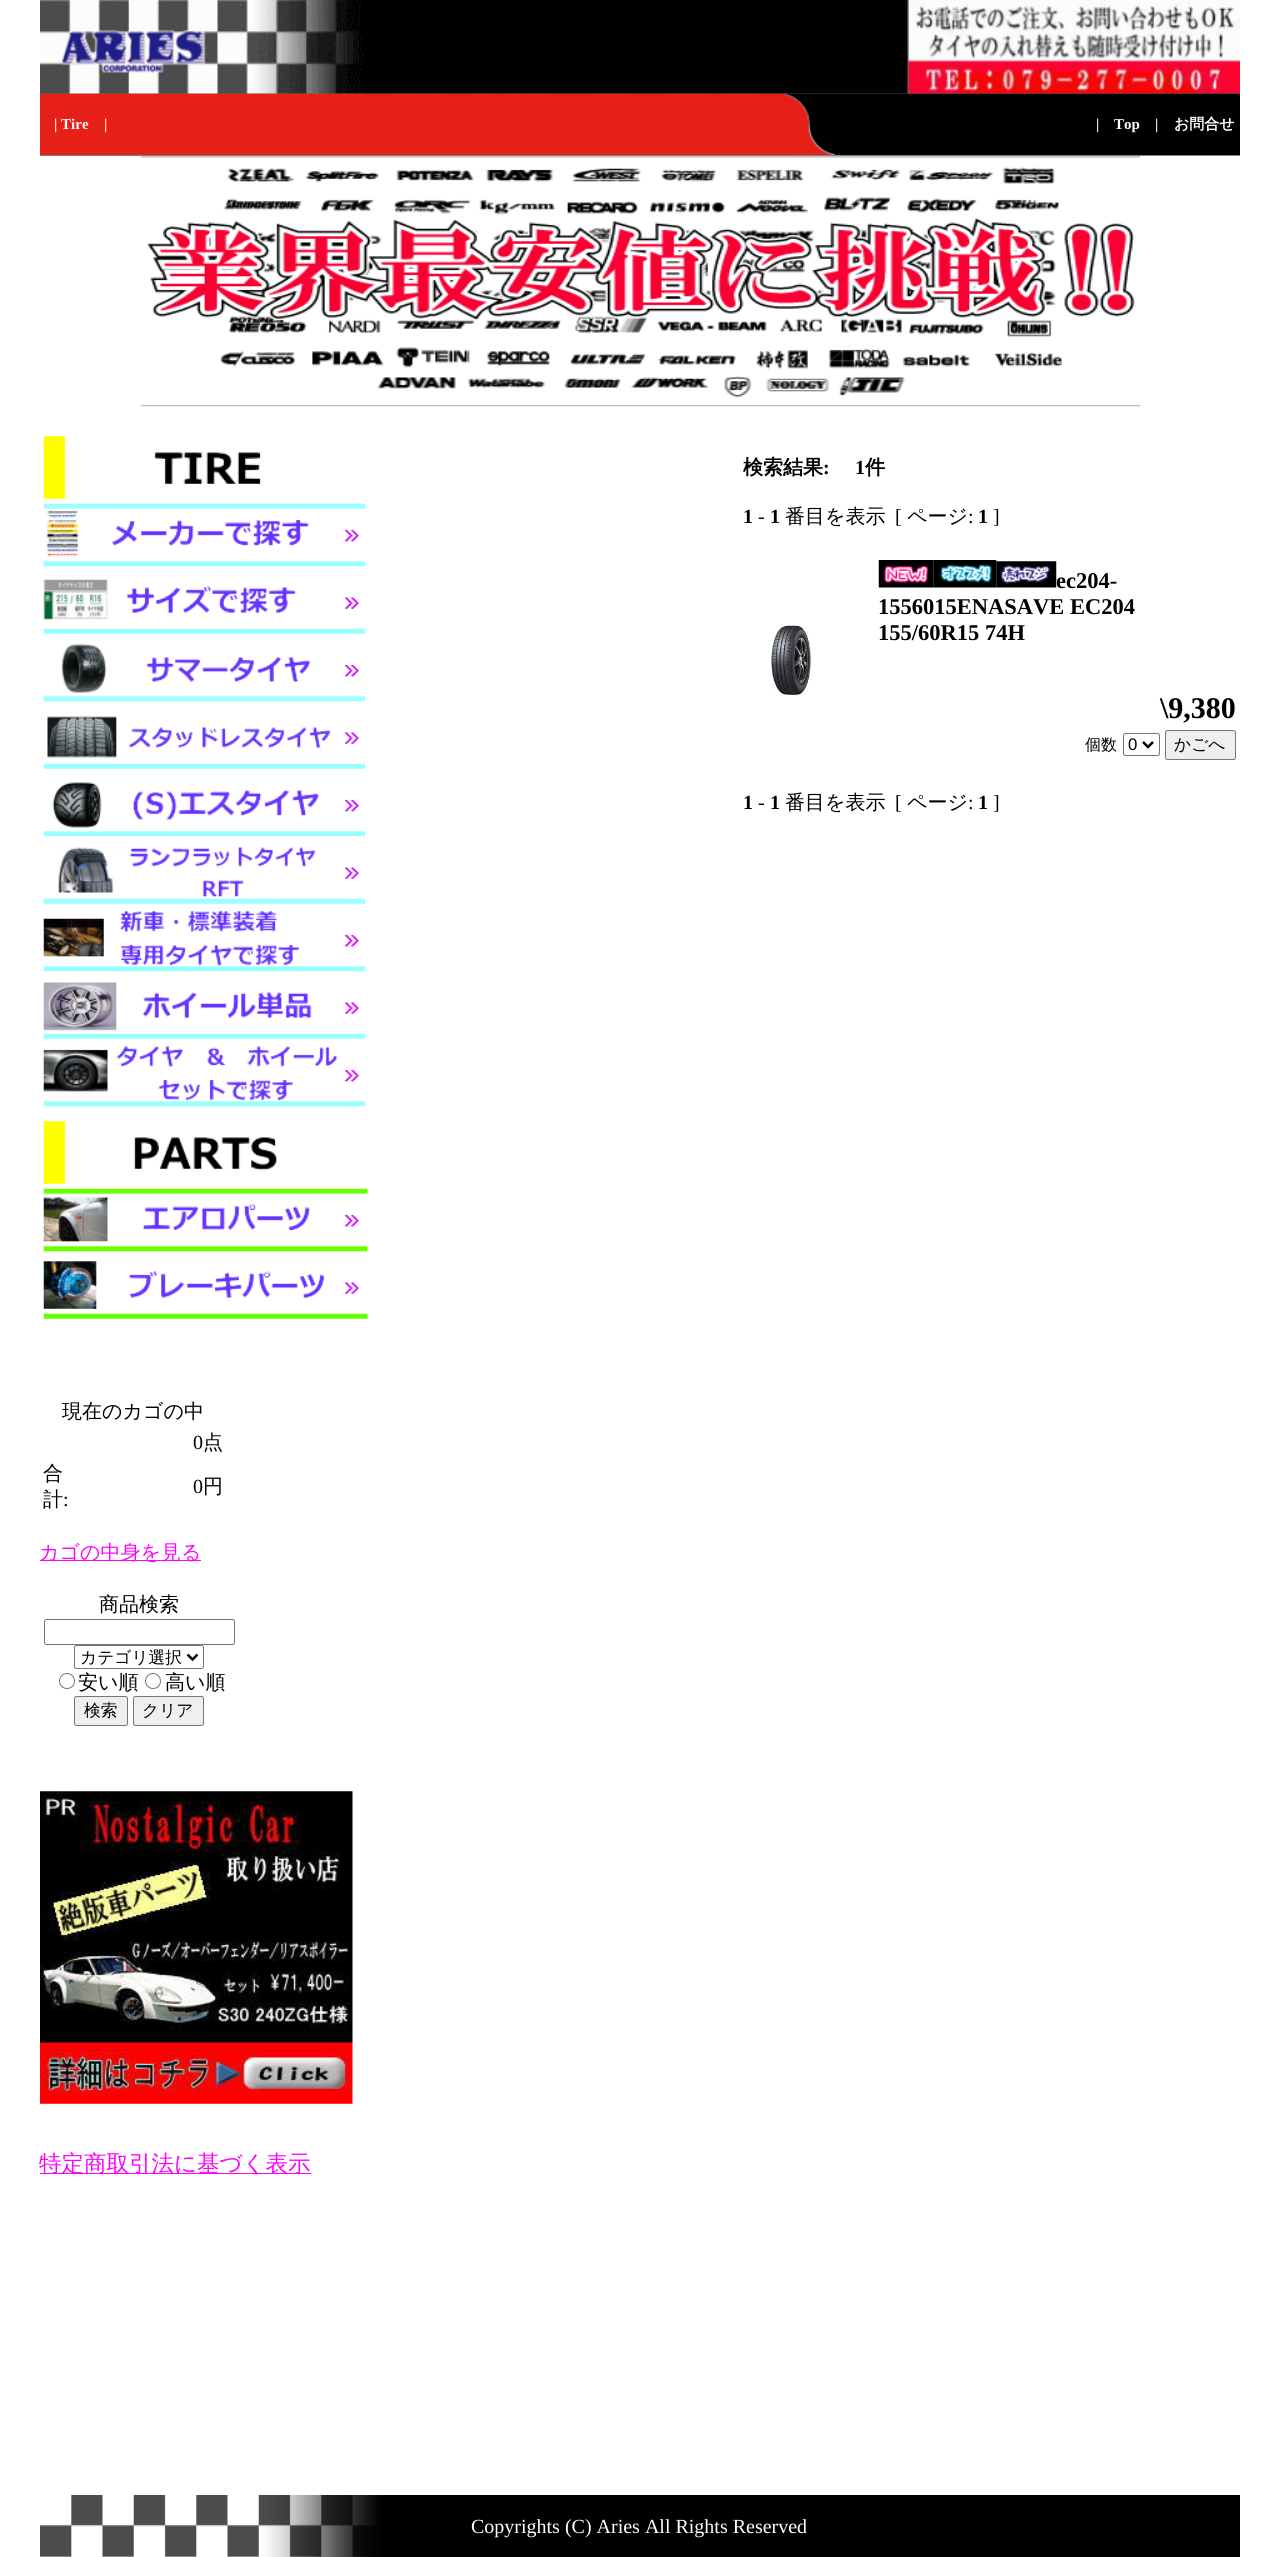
import math
import cairo



def rounded_rect(context, x, y, w, h, r):
    context.new_sub_path()
    for i, (u, v) in enumerate([(x + w - r, y + h - r), (x + r, y + h - r), (x + r, y + r), (x + w - r, y + r)]):
        context.arc(u, v, r, i * math.pi / 2, (i + 1) * math.pi / 2)
    context.close_path()


def draw_image(context, path, x, y, w, h):
    context.save()
    context.set_source_surface(cairo.ImageSurface.create_from_png(path), x, y)
    context.rectangle(x, y, w, h)
    context.fill()
    context.restore()


def draw(context):
    context.set_source_rgb(1, 1, 1)
    context.paint()
    draw_image(context, "images/1.png", 40, 0, 1200, 94)
    draw_image(context, "images/2.png", 40, 93, 1200, 62)
    context.set_source_rgb(128 / 255, 128 / 255, 128 / 255)
    context.rectangle(40, 155, 1200, 1)
    context.fill()
    draw_image(context, "images/3.png", 140, 156, 1000, 251)
    draw_image(context, "images/4.png", 878, 560, 56, 28)
    draw_image(context, "images/5.png", 933, 560, 64, 28)
    draw_image(context, "images/6.png", 996, 561, 61, 27)
    draw_image(context, "images/7.png", 771, 625, 40, 70)
    rounded_rect(context, 1123.5, 733.5, 36, 22, 2)
    context.set_source_rgb(118 / 255, 118 / 255, 118 / 255)
    context.set_line_width(1)
    context.stroke()
    context.new_path()
    context.move_to(1143, 742)
    context.line_to(1148, 747)
    context.line_to(1153, 742)
    context.set_source_rgb(0, 0, 0)
    context.set_line_width(2.5)
    context.stroke()
    context.set_source_rgb(239 / 255, 239 / 255, 239 / 255)
    rounded_rect(context, 1165.5, 730.5, 70, 29, 2)
    context.fill_preserve()
    context.set_source_rgb(118 / 255, 118 / 255, 118 / 255)
    context.set_line_width(1)
    context.stroke()
    draw_image(context, "images/8.png", 43, 436, 218, 63)
    draw_image(context, "images/9.png", 43, 503, 322, 64)
    draw_image(context, "images/10.png", 43, 578, 322, 56)
    draw_image(context, "images/11.png", 43, 643, 322, 59)
    draw_image(context, "images/12.png", 43, 716, 322, 53)
    draw_image(context, "images/13.png", 43, 782, 322, 55)
    draw_image(context, "images/14.png", 43, 847, 322, 57)
    draw_image(context, "images/15.png", 43, 910, 322, 62)
    draw_image(context, "images/16.png", 43, 982, 322, 57)
    draw_image(context, "images/17.png", 43, 1046, 322, 61)
    draw_image(context, "images/18.png", 43, 1121, 234, 63)
    draw_image(context, "images/19.png", 43, 1188, 325, 64)
    draw_image(context, "images/20.png", 43, 1261, 325, 58)
    context.set_source_rgb(1, 0, 1)
    context.rectangle(40, 1560, 161, 1)
    context.fill()
    rounded_rect(context, 44.5, 1619.5, 190, 25, 2)
    context.set_source_rgb(118 / 255, 118 / 255, 118 / 255)
    context.stroke()
    rounded_rect(context, 74.5, 1645.5, 129, 23, 2)
    context.stroke()
    context.new_path()
    context.move_to(187.5, 1654.5)
    context.line_to(192.5, 1659.5)
    context.line_to(197.5, 1654.5)
    context.set_source_rgb(0, 0, 0)
    context.set_line_width(2.5)
    context.stroke()
    context.arc(67, 1681, 7.5, 0, 2 * math.pi)
    context.set_source_rgb(118 / 255, 118 / 255, 118 / 255)
    context.set_line_width(1)
    context.stroke()
    context.arc(153, 1681, 7.5, 0, 2 * math.pi)
    context.stroke()
    context.set_source_rgb(239 / 255, 239 / 255, 239 / 255)
    rounded_rect(context, 74.5, 1696.5, 53, 29, 2)
    context.fill_preserve()
    context.set_source_rgb(118 / 255, 118 / 255, 118 / 255)
    context.stroke()
    context.set_source_rgb(239 / 255, 239 / 255, 239 / 255)
    rounded_rect(context, 133.5, 1696.5, 70, 29, 2)
    context.fill_preserve()
    context.set_source_rgb(118 / 255, 118 / 255, 118 / 255)
    context.stroke()
    draw_image(context, "images/21.png", 40, 1791, 313, 313)
    context.set_source_rgb(1, 0, 1)
    context.rectangle(40, 2173, 271, 1)
    context.fill()
    draw_image(context, "images/22.png", 40, 2495, 1200, 62)
    context.select_font_face("Liberation Serif", cairo.FontSlant.NORMAL, cairo.FontWeight.BOLD)
    context.set_font_size(15)
    context.set_source_rgb(1, 1, 1)
    context.move_to(54, 129)
    context.show_text("| Tire")
    context.move_to(104, 129)
    context.show_text("|")
    context.move_to(1096, 129)
    context.show_text("|")
    context.move_to(1114, 129)
    context.show_text("Top")
    context.move_to(1155, 129)
    context.show_text("|")
    context.select_font_face("WenQuanYi Zen Hei", cairo.FontSlant.NORMAL, cairo.FontWeight.BOLD)
    context.move_to(1174, 129)
    context.show_text("お問合せ")
    context.set_font_size(20)
    context.set_source_rgb(0, 0, 0)
    context.move_to(743, 474)
    context.show_text("検索結果")
    context.select_font_face("Liberation Serif", cairo.FontSlant.NORMAL, cairo.FontWeight.BOLD)
    context.move_to(823, 474)
    context.show_text(":")
    context.move_to(855, 474)
    context.show_text("1")
    context.select_font_face("WenQuanYi Zen Hei", cairo.FontSlant.NORMAL, cairo.FontWeight.BOLD)
    context.move_to(865, 474)
    context.show_text("件")
    context.select_font_face("Liberation Serif", cairo.FontSlant.NORMAL, cairo.FontWeight.BOLD)
    context.move_to(743, 523)
    context.show_text("1")
    context.select_font_face("Liberation Serif")
    context.move_to(758, 523)
    context.show_text("-")
    context.select_font_face("Liberation Serif", cairo.FontSlant.NORMAL, cairo.FontWeight.BOLD)
    context.move_to(770, 523)
    context.show_text("1")
    context.select_font_face("WenQuanYi Zen Hei Medium")
    context.move_to(785, 523)
    context.show_text("番目を表示")
    context.select_font_face("Liberation Serif")
    context.move_to(895, 523)
    context.show_text("[")
    context.select_font_face("WenQuanYi Zen Hei Medium")
    context.move_to(907, 523)
    context.show_text("ページ")
    context.select_font_face("Liberation Serif")
    context.move_to(968, 523)
    context.show_text(":")
    context.select_font_face("Liberation Serif", cairo.FontSlant.NORMAL, cairo.FontWeight.BOLD)
    context.move_to(978, 523)
    context.show_text("1")
    context.select_font_face("Liberation Serif")
    context.move_to(993, 523)
    context.show_text("]")
    context.select_font_face("Liberation Serif", cairo.FontSlant.NORMAL, cairo.FontWeight.BOLD)
    context.set_font_size(22.5)
    context.move_to(1056, 588)
    context.show_text("ec204-")
    context.move_to(878, 614)
    context.show_text("1556015ENASAVE EC204")
    context.move_to(878, 640)
    context.show_text("155/60R15 74H")
    context.set_font_size(30)
    context.move_to(1160, 718)
    context.show_text("\\9,380")
    context.select_font_face("WenQuanYi Zen Hei Medium")
    context.set_font_size(16)
    context.move_to(1085, 750)
    context.show_text("個数")
    context.select_font_face("Liberation Sans")
    context.set_font_size(16.75)
    context.move_to(1128, 750)
    context.show_text("0")
    context.select_font_face("WenQuanYi Zen Hei Medium")
    context.move_to(1174, 750)
    context.show_text("かごへ")
    context.select_font_face("Liberation Serif", cairo.FontSlant.NORMAL, cairo.FontWeight.BOLD)
    context.set_font_size(20)
    context.move_to(743, 809)
    context.show_text("1")
    context.select_font_face("Liberation Serif")
    context.move_to(758, 809)
    context.show_text("-")
    context.select_font_face("Liberation Serif", cairo.FontSlant.NORMAL, cairo.FontWeight.BOLD)
    context.move_to(770, 809)
    context.show_text("1")
    context.select_font_face("WenQuanYi Zen Hei Medium")
    context.move_to(785, 809)
    context.show_text("番目を表示")
    context.select_font_face("Liberation Serif")
    context.move_to(895, 809)
    context.show_text("[")
    context.select_font_face("WenQuanYi Zen Hei Medium")
    context.move_to(907, 809)
    context.show_text("ページ")
    context.select_font_face("Liberation Serif")
    context.move_to(968, 809)
    context.show_text(":")
    context.select_font_face("Liberation Serif", cairo.FontSlant.NORMAL, cairo.FontWeight.BOLD)
    context.move_to(978, 809)
    context.show_text("1")
    context.select_font_face("Liberation Serif")
    context.move_to(993, 809)
    context.show_text("]")
    context.select_font_face("WenQuanYi Zen Hei Medium")
    context.move_to(62, 1418)
    context.show_text("現在のカゴの中")
    context.select_font_face("Liberation Serif")
    context.move_to(193, 1449)
    context.show_text("0")
    context.select_font_face("WenQuanYi Zen Hei Medium")
    context.move_to(203, 1449)
    context.show_text("点")
    context.move_to(43, 1480)
    context.show_text("合")
    context.move_to(43, 1506)
    context.show_text("計")
    context.select_font_face("Liberation Serif")
    context.move_to(63, 1506)
    context.show_text(":")
    context.move_to(193, 1493)
    context.show_text("0")
    context.select_font_face("WenQuanYi Zen Hei Medium")
    context.move_to(203, 1493)
    context.show_text("円")
    context.set_source_rgb(1, 0, 1)
    context.move_to(39, 1559)
    context.show_text("カゴの中身を見る")
    context.set_source_rgb(0, 0, 0)
    context.move_to(99, 1611)
    context.show_text("商品検索")
    context.set_font_size(16.75)
    context.move_to(80, 1663)
    context.show_text("カテゴリ選択")
    context.set_font_size(20)
    context.move_to(78, 1689)
    context.show_text("安い順")
    context.move_to(165, 1689)
    context.show_text("高い順")
    context.set_font_size(16.75)
    context.move_to(84, 1716)
    context.show_text("検索")
    context.move_to(142, 1716)
    context.show_text("クリア")
    context.set_font_size(22.5)
    context.set_source_rgb(1, 0, 1)
    context.move_to(39, 2171)
    context.show_text("特定商取引法に基づく表示")
    context.select_font_face("Liberation Serif")
    context.set_font_size(20)
    context.set_source_rgb(1, 1, 1)
    context.move_to(471, 2533)
    context.show_text("Copyrights (C) Aries All Rights Reserved")


surface = cairo.ImageSurface(cairo.Format.RGB24, 1278, 2557)
context = cairo.Context(surface)
options = cairo.FontOptions()
options.set_hint_metrics(cairo.HintMetrics.OFF)
options.set_hint_style(cairo.HintStyle.NONE)
context.set_font_options(options)
context.set_miter_limit(4)
draw(context)
surface.write_to_png("out.png")
